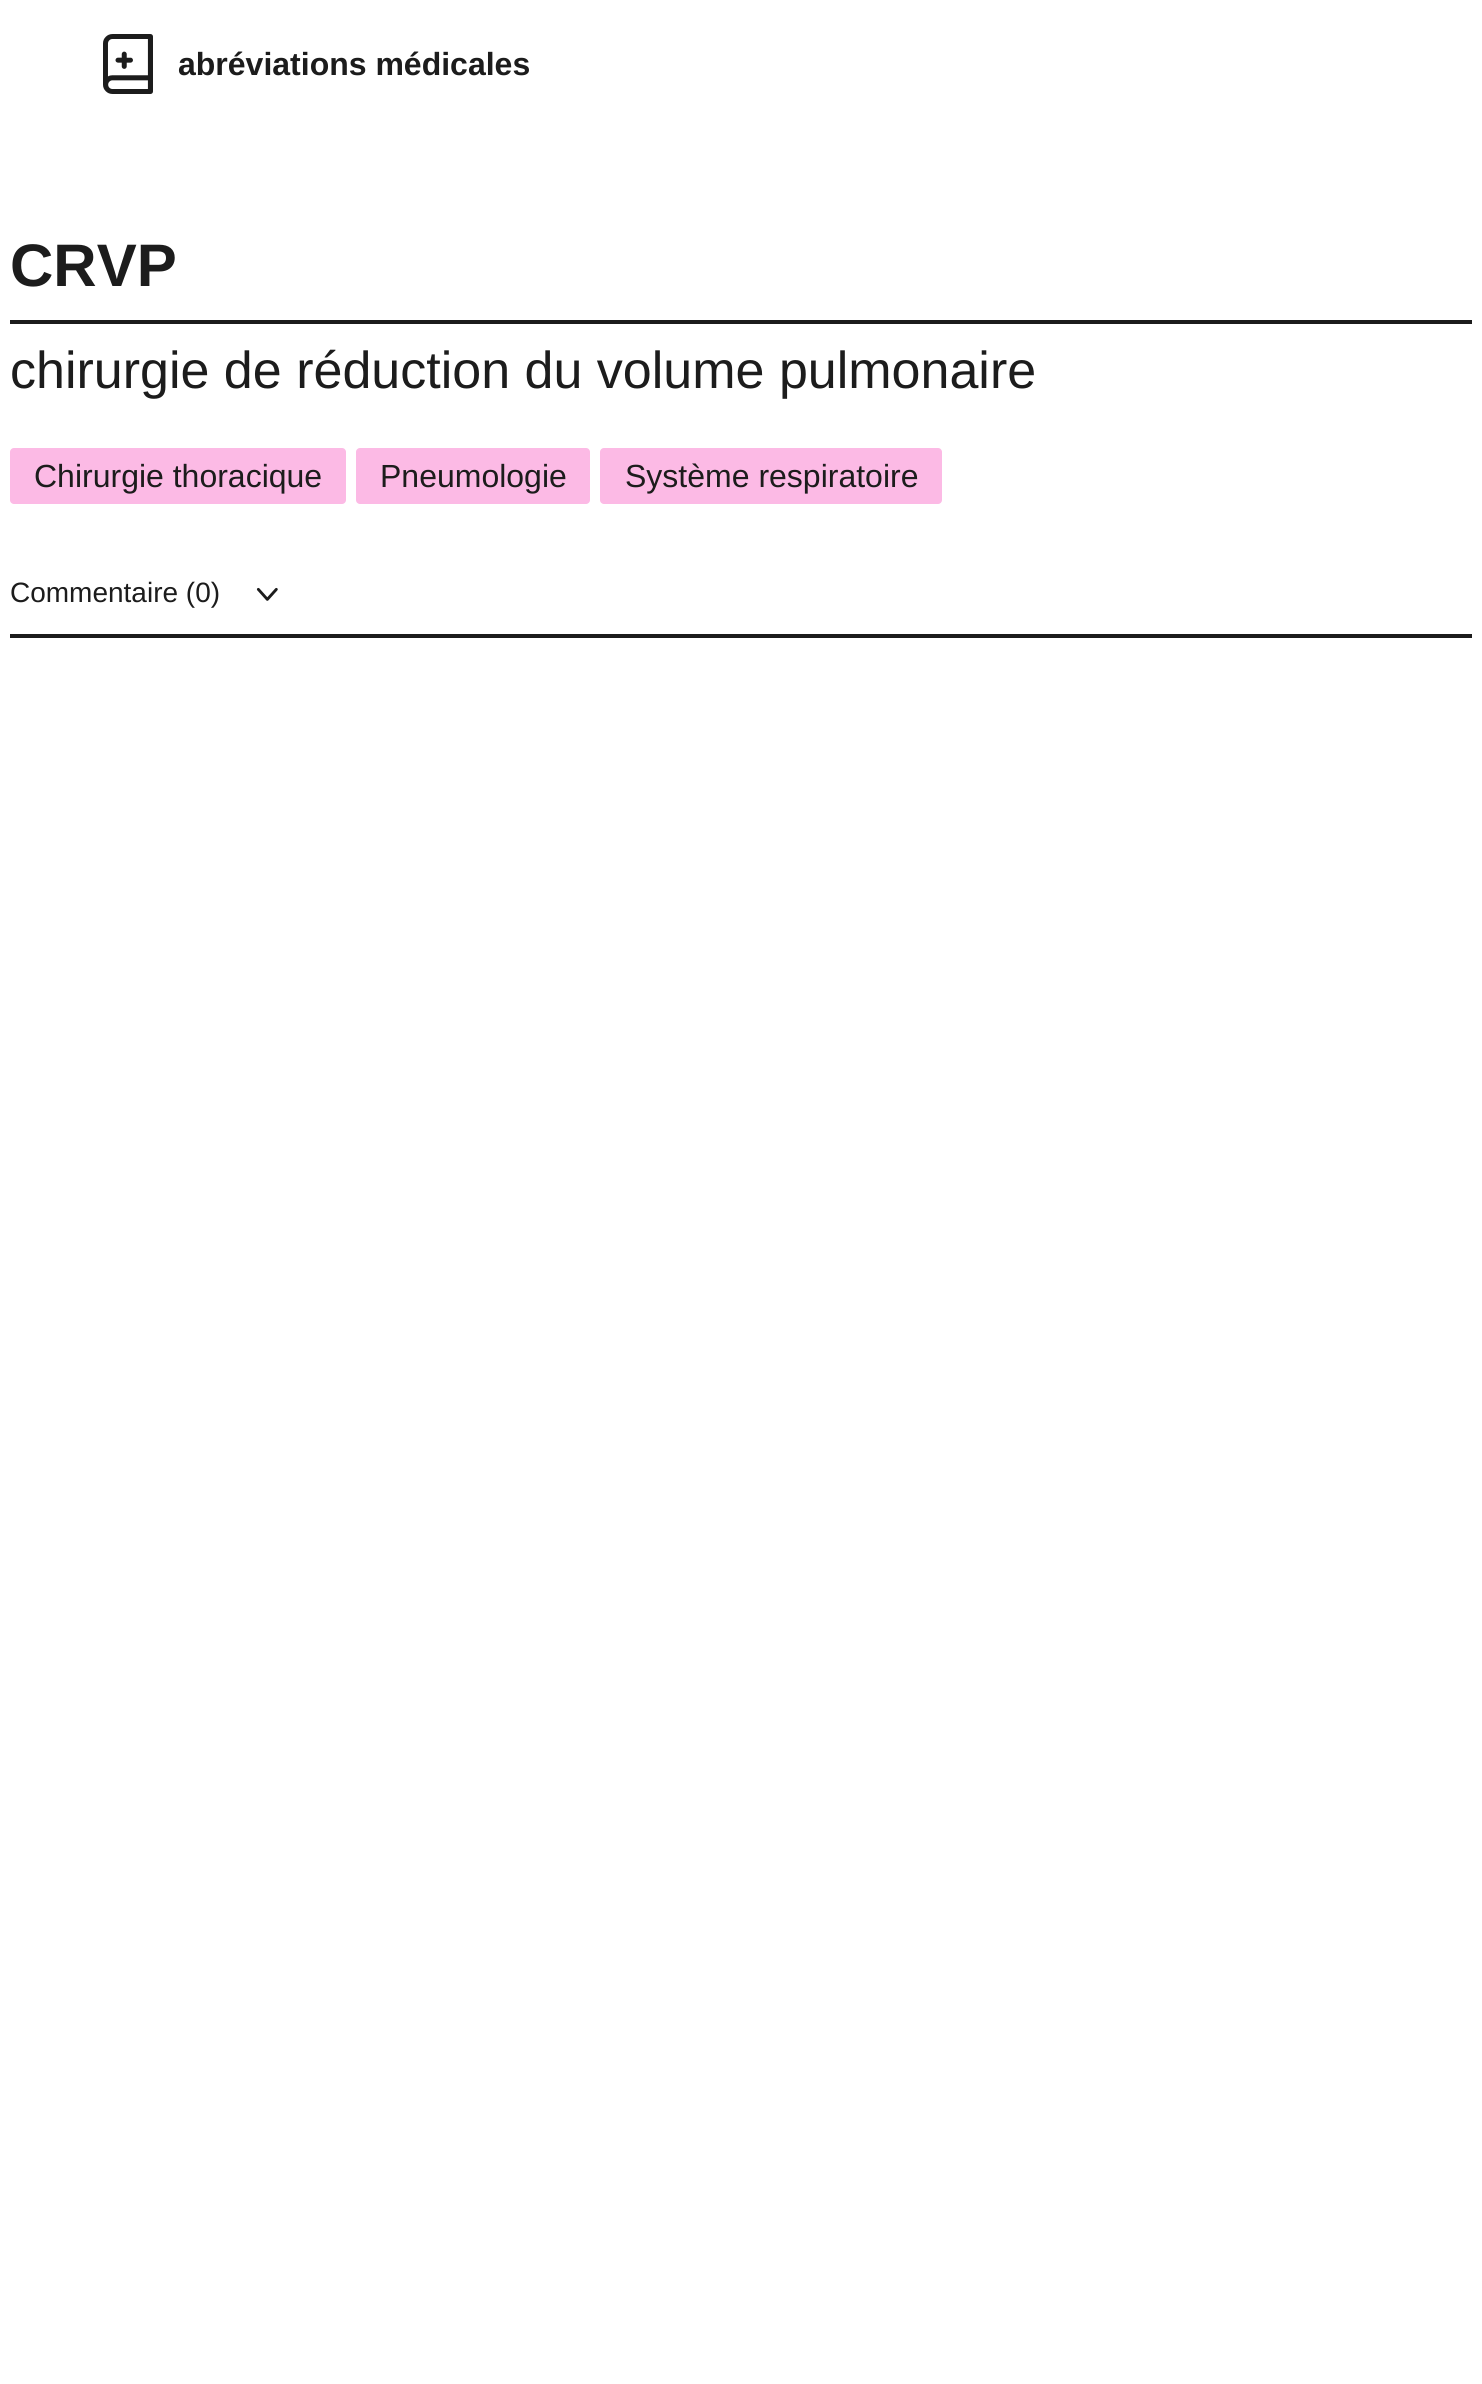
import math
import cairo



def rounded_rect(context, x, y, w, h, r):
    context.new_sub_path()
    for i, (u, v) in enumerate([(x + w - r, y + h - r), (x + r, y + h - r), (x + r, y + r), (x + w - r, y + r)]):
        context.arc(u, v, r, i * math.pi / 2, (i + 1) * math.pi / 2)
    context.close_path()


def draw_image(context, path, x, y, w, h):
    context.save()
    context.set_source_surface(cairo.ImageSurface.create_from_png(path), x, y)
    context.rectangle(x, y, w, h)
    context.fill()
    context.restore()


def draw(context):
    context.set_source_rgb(1, 1, 1)
    context.paint()
    draw_image(context, "images/1.png", 103, 34, 50, 60)
    context.set_source_rgb(28 / 255, 28 / 255, 28 / 255)
    context.rectangle(10, 320, 1462, 4)
    context.fill()
    context.set_source_rgb(252 / 255, 186 / 255, 229 / 255)
    rounded_rect(context, 10, 448, 336, 56, 4)
    context.fill()
    rounded_rect(context, 356, 448, 234, 56, 4)
    context.fill()
    rounded_rect(context, 600, 448, 342, 56, 4)
    context.fill()
    draw_image(context, "images/2.png", 256, 587, 22, 14)
    context.set_source_rgb(28 / 255, 28 / 255, 28 / 255)
    context.rectangle(10, 634, 1462, 4)
    context.fill()
    context.select_font_face("Liberation Sans", cairo.FontSlant.NORMAL, cairo.FontWeight.BOLD)
    context.set_font_size(32)
    context.move_to(178, 75)
    context.show_text("abréviations médicales")
    context.set_font_size(60)
    context.move_to(10, 286)
    context.show_text("CRVP")
    context.select_font_face("Liberation Sans")
    context.set_font_size(52)
    context.move_to(10, 388)
    context.show_text("chirurgie de réduction du volume pulmonaire")
    context.set_font_size(32)
    context.move_to(34, 487)
    context.show_text("Chirurgie thoracique")
    context.move_to(380, 487)
    context.show_text("Pneumologie")
    context.move_to(625, 487)
    context.show_text("Système respiratoire")
    context.set_font_size(28)
    context.move_to(10, 602)
    context.show_text("Commentaire (0)")


surface = cairo.ImageSurface(cairo.Format.RGB24, 1482, 2384)
context = cairo.Context(surface)
options = cairo.FontOptions()
options.set_hint_metrics(cairo.HintMetrics.OFF)
options.set_hint_style(cairo.HintStyle.NONE)
context.set_font_options(options)
context.set_miter_limit(4)
draw(context)
surface.write_to_png("out.png")
